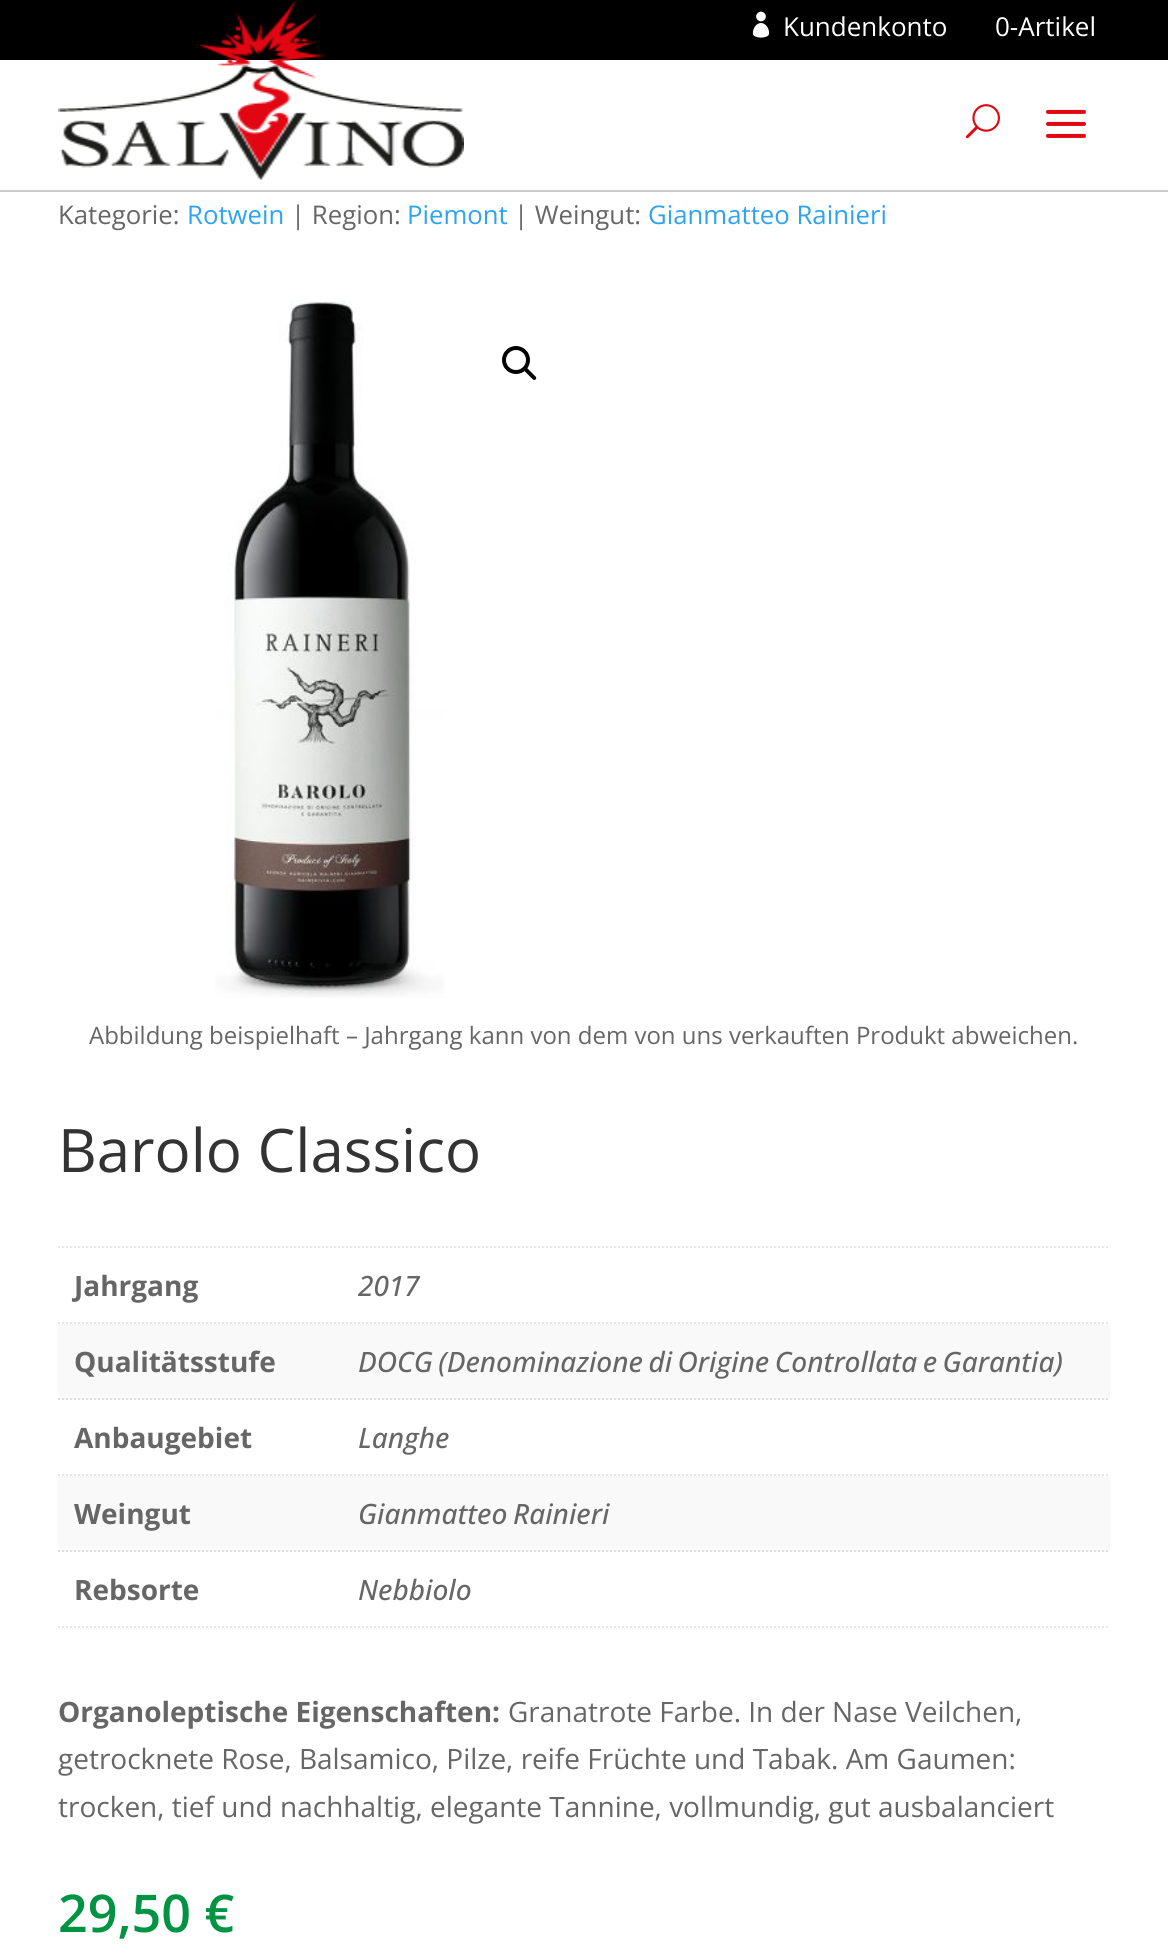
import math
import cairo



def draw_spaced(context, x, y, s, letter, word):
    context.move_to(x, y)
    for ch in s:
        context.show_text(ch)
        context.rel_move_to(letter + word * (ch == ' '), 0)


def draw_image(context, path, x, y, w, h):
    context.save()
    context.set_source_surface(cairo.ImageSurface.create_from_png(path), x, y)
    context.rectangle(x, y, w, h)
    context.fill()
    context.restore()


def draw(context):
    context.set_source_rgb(1, 1, 1)
    context.paint()
    context.set_source_rgb(204 / 255, 204 / 255, 204 / 255)
    context.rectangle(0, 190, 1168, 2)
    context.fill()
    context.set_source_rgb(0, 0, 0)
    context.rectangle(0, 0, 1168, 60)
    context.fill()
    draw_image(context, "images/1.png", 58, 0, 406, 180)
    draw_image(context, "images/2.png", 965, 104, 35, 35)
    draw_image(context, "images/3.png", 1046, 109, 40, 29)
    draw_image(context, "images/4.png", 752, 11, 18, 27)
    draw_image(context, "images/5.png", 215, 300, 230, 698)
    context.arc(516, 360, 12, 0, 2 * math.pi)
    context.set_line_width(4)
    context.stroke()
    context.new_path()
    context.move_to(524.5, 368)
    context.curve_to(525, 367, 526.5, 367, 527, 368)
    context.line_to(535.5, 376.5)
    context.curve_to(536.5, 377, 536.5, 378.5, 535.5, 379.5)
    context.curve_to(535, 380, 533.5, 380, 533, 379.5)
    context.line_to(524.5, 371)
    context.curve_to(523.5, 370, 523.5, 368.5, 524.5, 368)
    context.close_path()
    context.fill()
    context.new_path()
    context.move_to(58, 1247)
    context.line_to(1110, 1247)
    context.set_source_rgb(230 / 255, 230 / 255, 230 / 255)
    context.set_line_width(2)
    context.set_dash([2, 2])
    context.stroke()
    context.new_path()
    context.move_to(58, 1323)
    context.line_to(358, 1323)
    context.stroke()
    context.new_path()
    context.move_to(358, 1323)
    context.line_to(1110, 1323)
    context.stroke()
    context.set_source_rgb(249 / 255, 249 / 255, 249 / 255)
    context.rectangle(58, 1324, 1052, 76)
    context.fill()
    context.new_path()
    context.move_to(58, 1399)
    context.line_to(358, 1399)
    context.set_source_rgb(224 / 255, 224 / 255, 224 / 255)
    context.stroke()
    context.new_path()
    context.move_to(358, 1399)
    context.line_to(1110, 1399)
    context.stroke()
    context.new_path()
    context.move_to(58, 1475)
    context.line_to(358, 1475)
    context.set_source_rgb(230 / 255, 230 / 255, 230 / 255)
    context.stroke()
    context.new_path()
    context.move_to(358, 1475)
    context.line_to(1110, 1475)
    context.stroke()
    context.set_source_rgb(249 / 255, 249 / 255, 249 / 255)
    context.rectangle(58, 1476, 1052, 76)
    context.fill()
    context.new_path()
    context.move_to(58, 1551)
    context.line_to(358, 1551)
    context.set_source_rgb(224 / 255, 224 / 255, 224 / 255)
    context.stroke()
    context.new_path()
    context.move_to(358, 1551)
    context.line_to(1110, 1551)
    context.stroke()
    context.new_path()
    context.move_to(58, 1627)
    context.line_to(358, 1627)
    context.set_source_rgb(230 / 255, 230 / 255, 230 / 255)
    context.stroke()
    context.new_path()
    context.move_to(358, 1627)
    context.line_to(1110, 1627)
    context.stroke()
    context.select_font_face("Open Sans")
    context.set_font_size(26)
    context.set_source_rgb(1, 1, 1)
    context.move_to(783, 36)
    context.show_text("Kundenkonto")
    context.move_to(995, 36)
    context.show_text("0-Artikel")
    context.set_font_size(25.75)
    context.set_source_rgb(102 / 255, 102 / 255, 102 / 255)
    context.move_to(58, 224)
    context.show_text("Kategorie:")
    context.set_source_rgb(46 / 255, 163 / 255, 242 / 255)
    context.move_to(187, 224)
    context.show_text("Rotwein")
    context.set_source_rgb(102 / 255, 102 / 255, 102 / 255)
    context.move_to(291, 224)
    context.show_text("| Region:")
    context.set_source_rgb(46 / 255, 163 / 255, 242 / 255)
    context.move_to(407, 224)
    context.show_text("Piemont")
    context.set_source_rgb(102 / 255, 102 / 255, 102 / 255)
    context.move_to(514, 224)
    context.show_text("| Weingut:")
    context.set_source_rgb(46 / 255, 163 / 255, 242 / 255)
    context.move_to(648, 224)
    context.show_text("Gianmatteo Rainieri")
    context.set_font_size(24)
    context.set_source_rgb(102 / 255, 102 / 255, 102 / 255)
    context.move_to(89, 1044)
    context.show_text("Abbildung beispielhaft – Jahrgang kann von dem von uns verkauften Produkt abweichen.")
    context.set_font_size(60)
    context.set_source_rgb(51 / 255, 51 / 255, 51 / 255)
    context.move_to(58, 1172)
    context.show_text("Barolo Classico")
    context.select_font_face("Open Sans", cairo.FontSlant.NORMAL, cairo.FontWeight.BOLD)
    context.set_font_size(28)
    context.set_source_rgb(102 / 255, 102 / 255, 102 / 255)
    context.move_to(74, 1296)
    context.show_text("Jahrgang")
    context.select_font_face("Open Sans Medium", cairo.FontSlant.ITALIC)
    context.move_to(358, 1296)
    context.show_text("2017")
    context.select_font_face("Open Sans", cairo.FontSlant.NORMAL, cairo.FontWeight.BOLD)
    context.move_to(74, 1372)
    context.show_text("Qualitätsstufe")
    context.select_font_face("Open Sans Medium", cairo.FontSlant.ITALIC)
    draw_spaced(context, 358, 1372, "DOCG (Denominazione di Origine Controllata e Garantia)", 0, -1.75)
    context.select_font_face("Open Sans", cairo.FontSlant.NORMAL, cairo.FontWeight.BOLD)
    context.move_to(74, 1448)
    context.show_text("Anbaugebiet")
    context.select_font_face("Open Sans Medium", cairo.FontSlant.ITALIC)
    context.move_to(358, 1448)
    context.show_text("Langhe")
    context.select_font_face("Open Sans", cairo.FontSlant.NORMAL, cairo.FontWeight.BOLD)
    context.move_to(74, 1524)
    context.show_text("Weingut")
    context.select_font_face("Open Sans Medium", cairo.FontSlant.ITALIC)
    draw_spaced(context, 358, 1524, "Gianmatteo Rainieri", 0, -1.75)
    context.select_font_face("Open Sans", cairo.FontSlant.NORMAL, cairo.FontWeight.BOLD)
    context.move_to(74, 1600)
    context.show_text("Rebsorte")
    context.select_font_face("Open Sans Medium", cairo.FontSlant.ITALIC)
    context.move_to(358, 1600)
    context.show_text("Nebbiolo")
    context.select_font_face("Open Sans", cairo.FontSlant.NORMAL, cairo.FontWeight.BOLD)
    context.move_to(58, 1722)
    context.show_text("Organoleptische Eigenschaften:")
    context.select_font_face("Open Sans")
    context.move_to(508, 1722)
    context.show_text("Granatrote Farbe. In der Nase Veilchen,")
    context.move_to(58, 1769)
    context.show_text("getrocknete Rose, Balsamico, Pilze, reife Früchte und Tabak. Am Gaumen:")
    context.move_to(58, 1817)
    context.show_text("trocken, tief und nachhaltig, elegante Tannine, vollmundig, gut ausbalanciert")
    context.select_font_face("Open Sans SemiBold")
    context.set_font_size(52)
    context.set_source_rgb(0, 147 / 255, 68 / 255)
    context.move_to(58, 1932)
    context.show_text("29,50 €")


surface = cairo.ImageSurface(cairo.Format.RGB24, 1168, 1960)
context = cairo.Context(surface)
options = cairo.FontOptions()
options.set_hint_metrics(cairo.HintMetrics.OFF)
options.set_hint_style(cairo.HintStyle.NONE)
context.set_font_options(options)
context.set_miter_limit(4)
draw(context)
surface.write_to_png("out.png")
